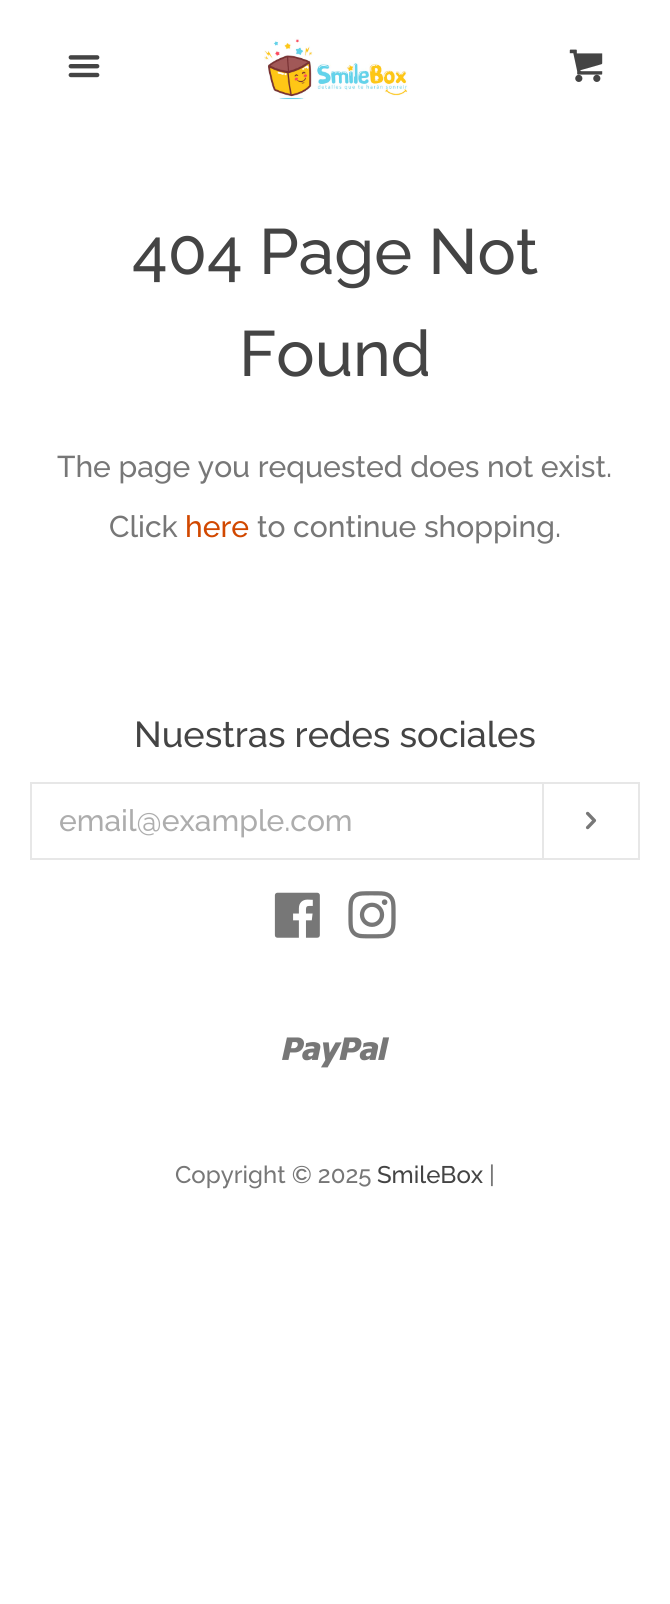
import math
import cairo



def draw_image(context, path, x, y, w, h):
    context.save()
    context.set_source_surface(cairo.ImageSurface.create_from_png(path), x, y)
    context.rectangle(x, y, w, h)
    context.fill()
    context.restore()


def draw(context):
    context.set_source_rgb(1, 1, 1)
    context.paint()
    draw_image(context, "images/1.png", 68, 55, 32, 23)
    draw_image(context, "images/2.png", 264, 38, 144, 62)
    draw_image(context, "images/3.png", 569, 49, 34, 33)
    context.rectangle(31, 783, 608, 76)
    context.set_source_rgb(231 / 255, 231 / 255, 231 / 255)
    context.stroke()
    context.rectangle(542, 784, 2, 74)
    context.fill()
    draw_image(context, "images/4.png", 585, 811, 12, 19)
    draw_image(context, "images/5.png", 274, 892, 46, 46)
    draw_image(context, "images/6.png", 348, 891, 48, 48)
    draw_image(context, "images/7.png", 282, 1037, 108, 31)
    context.select_font_face("Raleway Medium")
    context.set_font_size(64)
    context.set_source_rgb(68 / 255, 68 / 255, 68 / 255)
    context.move_to(132, 274)
    context.show_text("404 Page Not")
    context.move_to(239, 376)
    context.show_text("Found")
    context.set_font_size(30)
    context.set_source_rgb(119 / 255, 119 / 255, 119 / 255)
    context.move_to(57, 477)
    context.show_text("The page you requested does not exist.")
    context.move_to(109, 537)
    context.show_text("Click")
    context.set_source_rgb(209 / 255, 72 / 255, 0)
    context.move_to(185, 537)
    context.show_text("here")
    context.set_source_rgb(119 / 255, 119 / 255, 119 / 255)
    context.move_to(257, 537)
    context.show_text("to continue shopping.")
    context.set_font_size(36)
    context.set_source_rgb(68 / 255, 68 / 255, 68 / 255)
    context.move_to(134, 747)
    context.show_text("Nuestras redes sociales")
    context.set_font_size(30)
    context.set_source_rgb(173 / 255, 173 / 255, 173 / 255)
    context.move_to(59, 831)
    context.show_text("email@example.com")
    context.set_font_size(24)
    context.set_source_rgb(119 / 255, 119 / 255, 119 / 255)
    context.move_to(175, 1183)
    context.show_text("Copyright © 2025")
    context.set_source_rgb(68 / 255, 68 / 255, 68 / 255)
    context.move_to(377, 1183)
    context.show_text("SmileBox")
    context.set_source_rgb(119 / 255, 119 / 255, 119 / 255)
    context.move_to(489, 1183)
    context.show_text("|")


surface = cairo.ImageSurface(cairo.Format.RGB24, 670, 1604)
context = cairo.Context(surface)
options = cairo.FontOptions()
options.set_hint_metrics(cairo.HintMetrics.OFF)
options.set_hint_style(cairo.HintStyle.NONE)
context.set_font_options(options)
context.set_miter_limit(4)
draw(context)
surface.write_to_png("out.png")
